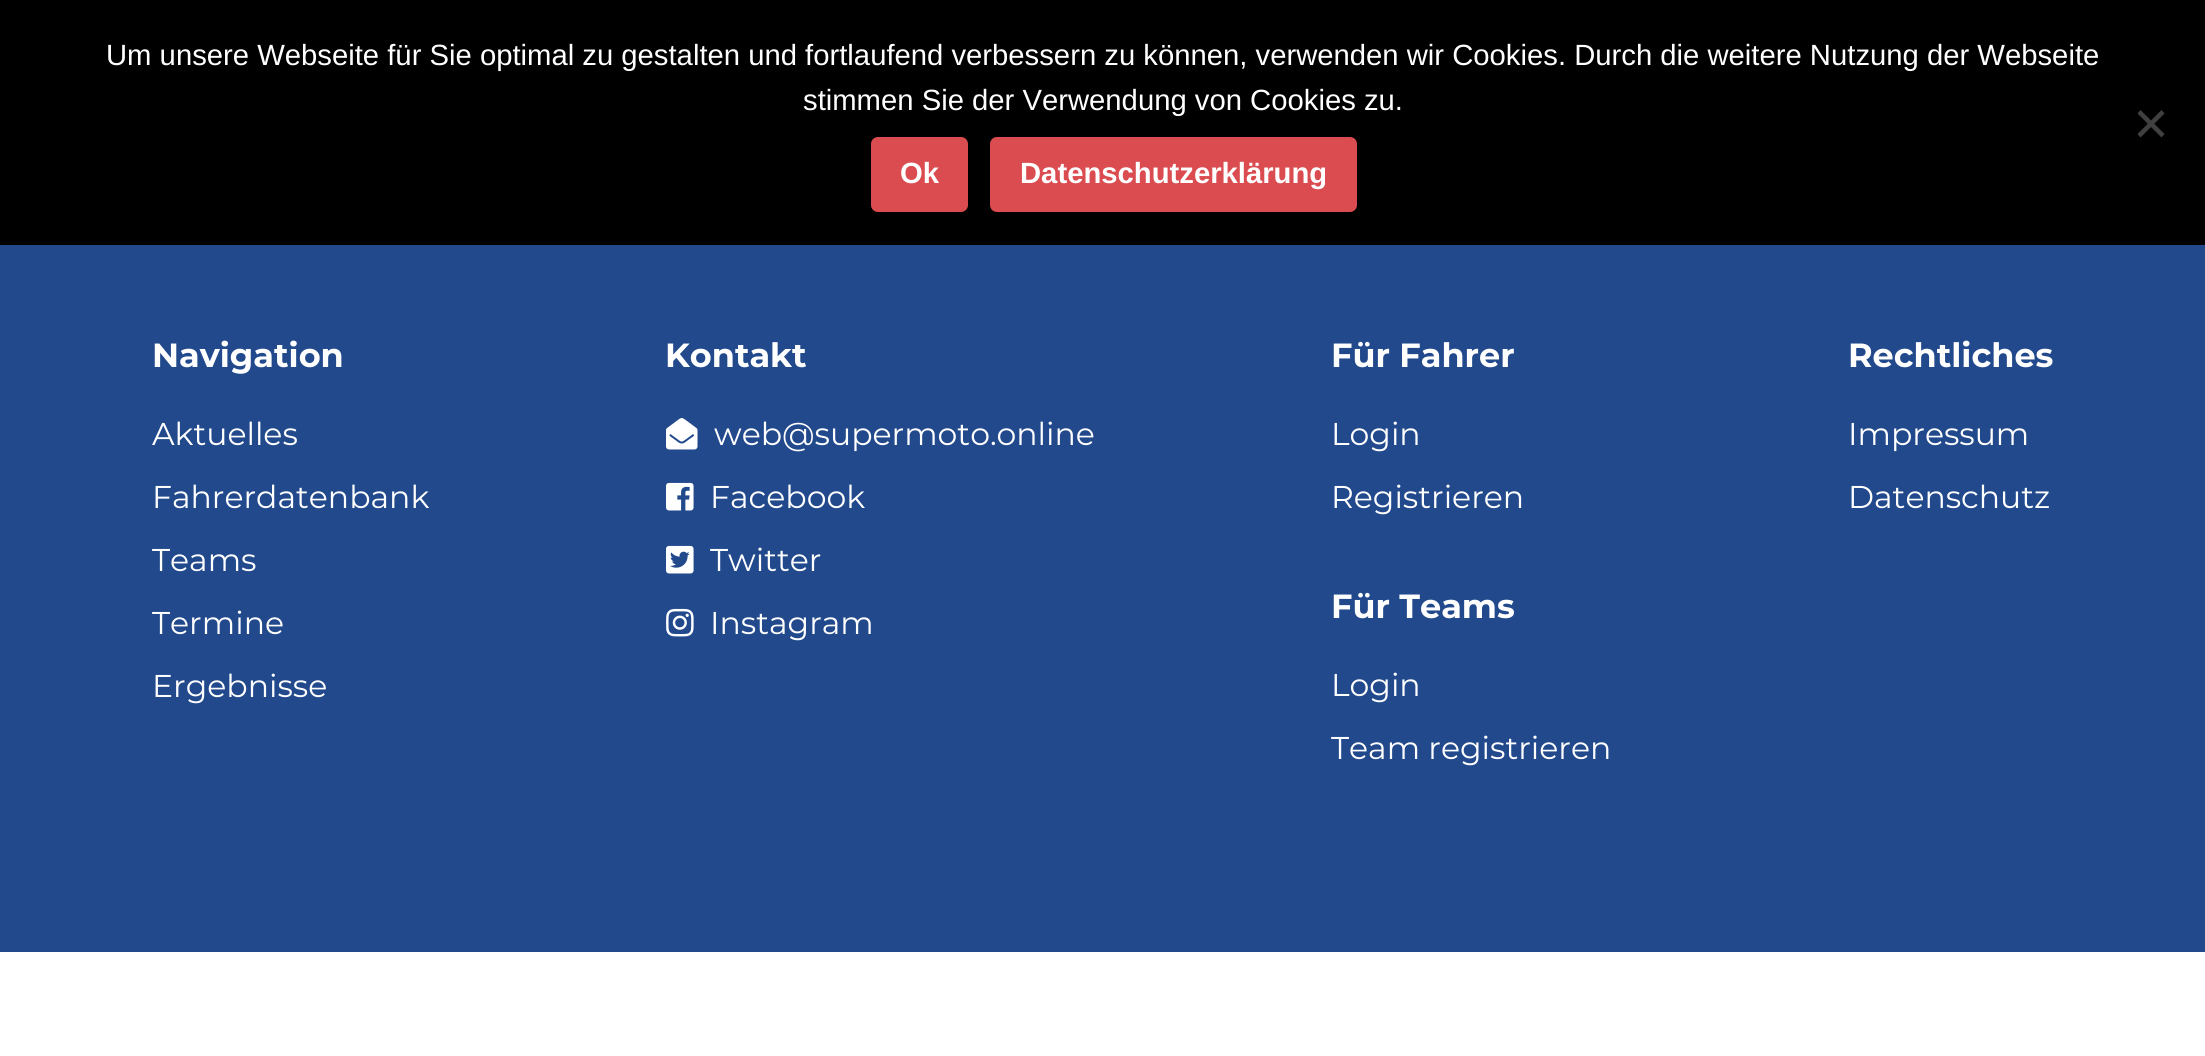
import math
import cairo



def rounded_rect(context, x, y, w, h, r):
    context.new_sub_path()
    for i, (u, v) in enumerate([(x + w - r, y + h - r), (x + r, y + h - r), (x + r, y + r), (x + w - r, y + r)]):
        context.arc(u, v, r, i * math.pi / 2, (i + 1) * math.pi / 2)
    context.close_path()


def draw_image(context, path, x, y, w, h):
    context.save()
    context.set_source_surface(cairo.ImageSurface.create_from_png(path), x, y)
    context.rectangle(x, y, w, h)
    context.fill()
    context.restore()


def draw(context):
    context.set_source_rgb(1, 1, 1)
    context.paint()
    context.set_source_rgb(0, 0, 0)
    context.rectangle(0, 0, 2205, 245)
    context.fill()
    context.set_source_rgb(64 / 255, 64 / 255, 64 / 255)
    context.new_path()
    context.move_to(2161.5, 110)
    context.line_to(2164.5, 113.5)
    context.line_to(2140.5, 137.5)
    context.line_to(2137.5, 134)
    context.close_path()
    context.fill()
    context.new_path()
    context.move_to(2137.5, 113.5)
    context.line_to(2140.5, 110)
    context.line_to(2164.5, 134)
    context.line_to(2161.5, 137.5)
    context.close_path()
    context.fill()
    context.set_source_rgb(219 / 255, 76 / 255, 81 / 255)
    rounded_rect(context, 871, 137, 97, 75, 7)
    context.fill()
    rounded_rect(context, 990, 137, 367, 75, 7)
    context.fill()
    context.set_source_rgb(33 / 255, 73 / 255, 140 / 255)
    context.rectangle(0, 245, 2205, 707)
    context.fill()
    draw_image(context, "images/1.png", 666, 418, 32, 32)
    draw_image(context, "images/2.png", 666, 482, 28, 29)
    draw_image(context, "images/3.png", 666, 545, 28, 29)
    draw_image(context, "images/4.png", 666, 608, 28, 29)
    context.select_font_face("Liberation Sans")
    context.set_font_size(29.25)
    context.set_source_rgb(1, 1, 1)
    context.move_to(106, 65)
    context.show_text("Um unsere Webseite für Sie optimal zu gestalten und fortlaufend verbessern zu können, verwenden wir Cookies. Durch die weitere Nutzung der Webseite")
    context.move_to(803, 110)
    context.show_text("stimmen Sie der Verwendung von Cookies zu.")
    context.select_font_face("Liberation Sans", cairo.FontSlant.NORMAL, cairo.FontWeight.BOLD)
    context.move_to(900, 183)
    context.show_text("Ok")
    context.move_to(1020, 183)
    context.show_text("Datenschutzerklärung")
    context.select_font_face("Montserrat", cairo.FontSlant.NORMAL, cairo.FontWeight.BOLD)
    context.set_font_size(33.5)
    context.move_to(152, 367)
    context.show_text("Navigation")
    context.select_font_face("Montserrat")
    context.set_font_size(31.5)
    context.move_to(152, 445)
    context.show_text("Aktuelles")
    context.move_to(152, 508)
    context.show_text("Fahrerdatenbank")
    context.move_to(152, 571)
    context.show_text("Teams")
    context.move_to(152, 634)
    context.show_text("Termine")
    context.move_to(152, 697)
    context.show_text("Ergebnisse")
    context.select_font_face("Montserrat", cairo.FontSlant.NORMAL, cairo.FontWeight.BOLD)
    context.set_font_size(33.5)
    context.move_to(665, 367)
    context.show_text("Kontakt")
    context.select_font_face("Montserrat")
    context.set_font_size(31.5)
    context.move_to(714, 445)
    context.show_text("web@supermoto.online")
    context.move_to(710, 508)
    context.show_text("Facebook")
    context.move_to(710, 571)
    context.show_text("Twitter")
    context.move_to(710, 634)
    context.show_text("Instagram")
    context.select_font_face("Montserrat", cairo.FontSlant.NORMAL, cairo.FontWeight.BOLD)
    context.set_font_size(33.5)
    context.move_to(1331, 367)
    context.show_text("Für Fahrer")
    context.select_font_face("Montserrat")
    context.set_font_size(31.5)
    context.move_to(1331, 445)
    context.show_text("Login")
    context.move_to(1331, 508)
    context.show_text("Registrieren")
    context.select_font_face("Montserrat", cairo.FontSlant.NORMAL, cairo.FontWeight.BOLD)
    context.set_font_size(33.5)
    context.move_to(1331, 618)
    context.show_text("Für Teams")
    context.select_font_face("Montserrat")
    context.set_font_size(31.5)
    context.move_to(1331, 696)
    context.show_text("Login")
    context.move_to(1331, 759)
    context.show_text("Team registrieren")
    context.select_font_face("Montserrat", cairo.FontSlant.NORMAL, cairo.FontWeight.BOLD)
    context.set_font_size(33.5)
    context.move_to(1848, 367)
    context.show_text("Rechtliches")
    context.select_font_face("Montserrat")
    context.set_font_size(31.5)
    context.move_to(1848, 445)
    context.show_text("Impressum")
    context.move_to(1848, 508)
    context.show_text("Datenschutz")


surface = cairo.ImageSurface(cairo.Format.RGB24, 2205, 1056)
context = cairo.Context(surface)
options = cairo.FontOptions()
options.set_hint_metrics(cairo.HintMetrics.OFF)
options.set_hint_style(cairo.HintStyle.NONE)
context.set_font_options(options)
context.set_miter_limit(4)
draw(context)
surface.write_to_png("out.png")
